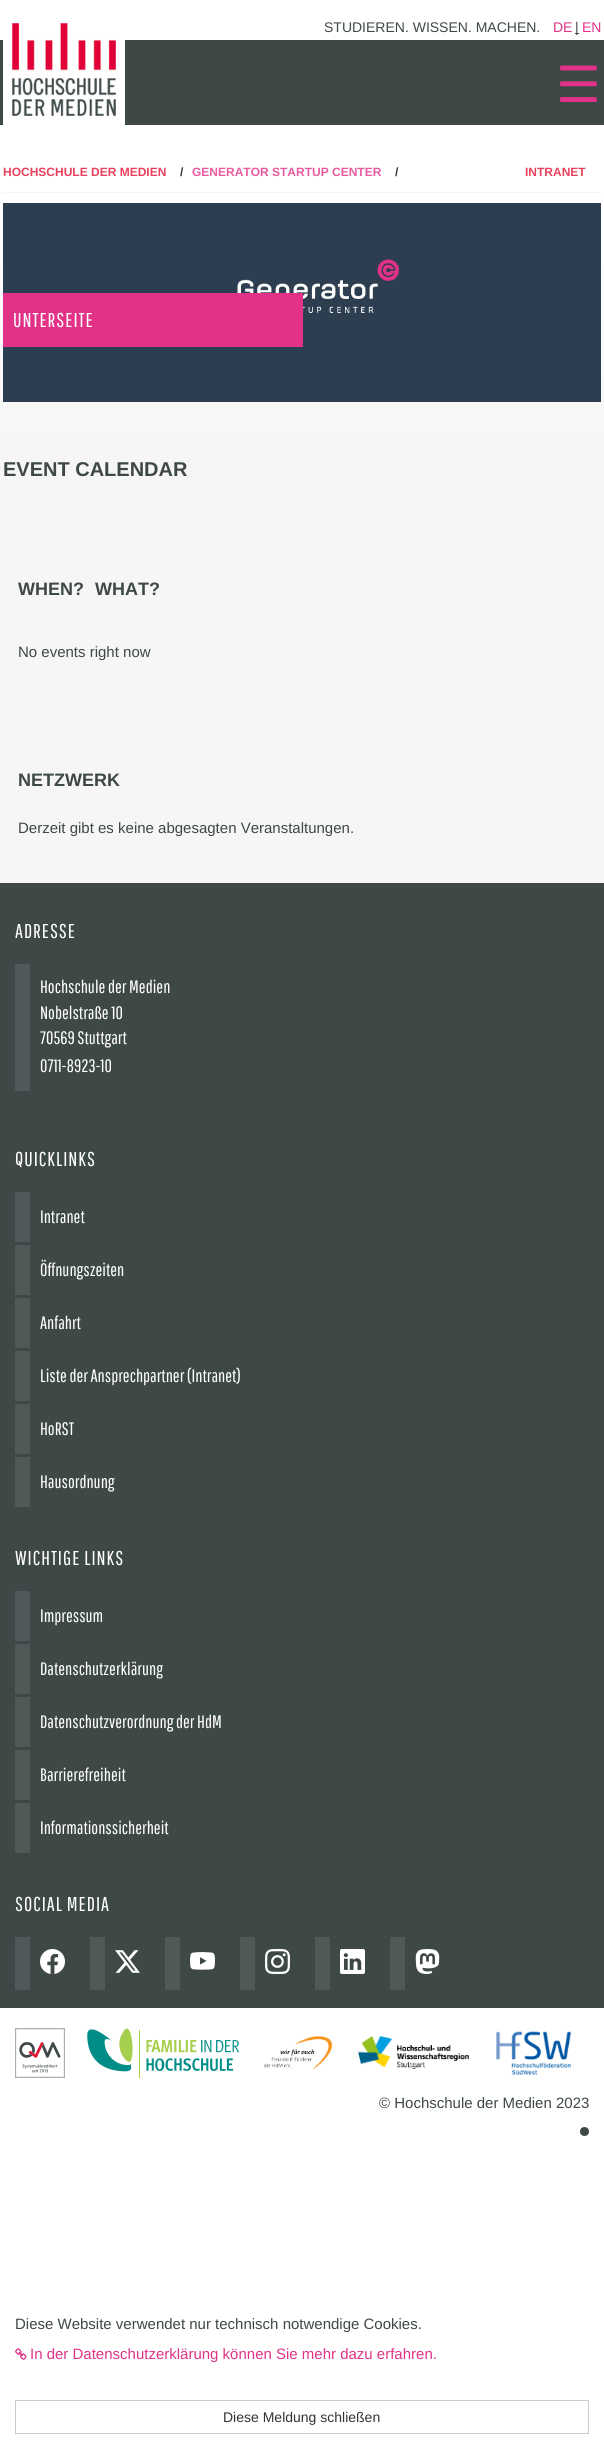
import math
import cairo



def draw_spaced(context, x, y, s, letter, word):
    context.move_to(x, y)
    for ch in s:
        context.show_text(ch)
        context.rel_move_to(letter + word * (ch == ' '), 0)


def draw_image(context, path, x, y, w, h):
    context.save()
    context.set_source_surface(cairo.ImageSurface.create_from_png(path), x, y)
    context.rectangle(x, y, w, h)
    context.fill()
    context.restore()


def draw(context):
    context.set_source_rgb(1, 1, 1)
    context.paint()
    gradient = cairo.LinearGradient(302, 0, 302, 2149)
    gradient.add_color_stop_rgba(0.09, 1, 1, 1, 1)
    gradient.add_color_stop_rgba(0.21, 246 / 255, 246 / 255, 246 / 255, 1)
    context.set_source(gradient)
    context.rectangle(0, 265, 604, 618)
    context.fill()
    context.set_source_rgb(62 / 255, 72 / 255, 71 / 255)
    context.rectangle(575, 33, 4, 1)
    context.fill()
    context.rectangle(0, 40, 604, 85)
    context.fill()
    draw_image(context, "images/1.png", 3, 23, 122, 102)
    context.set_source_rgb(246 / 255, 246 / 255, 246 / 255)
    context.rectangle(3, 192, 598, 1)
    context.fill()
    draw_image(context, "images/2.png", 3, 203, 598, 199)
    context.set_source_rgb(225 / 255, 50 / 255, 136 / 255)
    context.rectangle(3, 293, 300, 54)
    context.fill()
    context.set_source_rgb(62 / 255, 72 / 255, 71 / 255)
    context.rectangle(0, 883, 604, 1125)
    context.fill()
    context.set_source_rgb(80 / 255, 89 / 255, 89 / 255)
    context.rectangle(15, 964, 15, 127)
    context.fill()
    context.rectangle(15, 1192, 15, 50)
    context.fill()
    context.set_source_rgb(80 / 255, 89 / 255, 88 / 255)
    context.rectangle(15, 1245, 15, 50)
    context.fill()
    context.rectangle(15, 1298, 15, 50)
    context.fill()
    context.rectangle(15, 1351, 15, 50)
    context.fill()
    context.rectangle(15, 1404, 15, 50)
    context.fill()
    context.rectangle(15, 1457, 15, 50)
    context.fill()
    context.set_source_rgb(80 / 255, 89 / 255, 89 / 255)
    context.rectangle(15, 1591, 15, 50)
    context.fill()
    context.set_source_rgb(80 / 255, 89 / 255, 88 / 255)
    context.rectangle(15, 1644, 15, 50)
    context.fill()
    context.rectangle(15, 1697, 15, 50)
    context.fill()
    context.rectangle(15, 1750, 15, 50)
    context.fill()
    context.rectangle(15, 1803, 15, 50)
    context.fill()
    context.set_source_rgb(80 / 255, 89 / 255, 89 / 255)
    context.rectangle(15, 1937, 15, 53)
    context.fill()
    draw_image(context, "images/3.png", 40, 1949, 25, 25)
    context.set_source_rgb(80 / 255, 89 / 255, 88 / 255)
    context.rectangle(90, 1937, 15, 53)
    context.fill()
    draw_image(context, "images/4.png", 115, 1950, 25, 23)
    context.rectangle(165, 1937, 15, 53)
    context.fill()
    draw_image(context, "images/5.png", 190, 1952, 25, 18)
    context.rectangle(240, 1937, 15, 53)
    context.fill()
    draw_image(context, "images/6.png", 265, 1949, 25, 25)
    context.rectangle(315, 1937, 15, 53)
    context.fill()
    draw_image(context, "images/7.png", 340, 1949, 25, 25)
    context.rectangle(390, 1937, 15, 53)
    context.fill()
    draw_image(context, "images/8.png", 415, 1949, 25, 25)
    draw_image(context, "images/9.png", 15, 2028, 50, 50)
    draw_image(context, "images/10.png", 87, 2028, 153, 50)
    draw_image(context, "images/11.png", 264, 2036, 68, 33)
    draw_image(context, "images/12.png", 358, 2036, 111, 33)
    draw_image(context, "images/13.png", 496, 2031, 76, 44)
    context.set_source_rgb(62 / 255, 72 / 255, 71 / 255)
    context.arc(584.5, 2131.5, 4.5, 0, 2 * math.pi)
    context.fill()
    draw_image(context, "images/14.png", 15, 2348, 12, 12)
    context.rectangle(15.5, 2400.5, 573, 33)
    context.set_source_rgb(204 / 255, 204 / 255, 204 / 255)
    context.set_line_width(1)
    context.stroke()
    context.select_font_face("Liberation Sans")
    context.set_font_size(14)
    context.set_source_rgb(62 / 255, 72 / 255, 71 / 255)
    context.move_to(324, 32)
    context.show_text("STUDIEREN. WISSEN. MACHEN.")
    context.set_source_rgb(225 / 255, 50 / 255, 136 / 255)
    context.move_to(553, 32)
    context.show_text("DE")
    context.set_source_rgb(62 / 255, 72 / 255, 71 / 255)
    context.move_to(575, 32)
    context.show_text("|")
    context.set_source_rgb(225 / 255, 50 / 255, 136 / 255)
    context.move_to(582, 32)
    context.show_text("EN")
    context.select_font_face("DejaVu Sans")
    context.set_font_size(50)
    context.move_to(556, 102)
    context.show_text("☰")
    context.select_font_face("Liberation Sans", cairo.FontSlant.NORMAL, cairo.FontWeight.BOLD)
    context.set_font_size(12)
    context.set_source_rgb(233 / 255, 65 / 255, 93 / 255)
    context.move_to(3, 176)
    context.show_text("HOCHSCHULE DER MEDIEN")
    context.set_source_rgb(51 / 255, 51 / 255, 51 / 255)
    context.move_to(180, 176)
    context.show_text("/")
    context.set_source_rgb(231 / 255, 91 / 255, 160 / 255)
    context.move_to(192, 176)
    context.show_text("GENERATOR STARTUP CENTER")
    context.set_source_rgb(51 / 255, 51 / 255, 51 / 255)
    context.move_to(395, 176)
    context.show_text("/")
    context.set_source_rgb(233 / 255, 65 / 255, 93 / 255)
    context.move_to(525, 176)
    context.show_text("INTRANET")
    context.select_font_face("Pathway Gothic One")
    context.set_font_size(20)
    context.set_source_rgb(1, 1, 1)
    draw_spaced(context, 13, 327, "UNTERSEITE", 1, 0)
    context.select_font_face("Liberation Sans", cairo.FontSlant.NORMAL, cairo.FontWeight.BOLD)
    context.set_source_rgb(62 / 255, 72 / 255, 71 / 255)
    context.move_to(3, 476)
    context.show_text("EVENT CALENDAR")
    context.set_font_size(18)
    context.move_to(18, 595)
    context.show_text("WHEN?")
    context.move_to(95, 595)
    context.show_text("WHAT?")
    context.select_font_face("Liberation Sans")
    context.set_font_size(15)
    context.move_to(18, 657)
    context.show_text("No events right now")
    context.select_font_face("Liberation Sans", cairo.FontSlant.NORMAL, cairo.FontWeight.BOLD)
    context.set_font_size(18)
    context.move_to(18, 786)
    context.show_text("NETZWERK")
    context.select_font_face("Liberation Sans")
    context.set_font_size(15)
    context.move_to(18, 833)
    context.show_text("Derzeit gibt es keine abgesagten Veranstaltungen.")
    context.select_font_face("Pathway Gothic One")
    context.set_font_size(20)
    context.set_source_rgb(1, 1, 1)
    draw_spaced(context, 15, 938, "ADRESSE", 1, 0)
    context.set_font_size(18)
    context.move_to(40, 993)
    context.show_text("Hochschule der Medien")
    context.move_to(40, 1019)
    context.show_text("Nobelstraße 10")
    context.move_to(40, 1044)
    context.show_text("70569 Stuttgart")
    context.move_to(40, 1072)
    context.show_text("0711-8923-10")
    context.set_font_size(20)
    draw_spaced(context, 15, 1166, "QUICKLINKS", 1, 0)
    context.set_font_size(18)
    context.move_to(40, 1223)
    context.show_text("Intranet")
    context.move_to(40, 1276)
    context.show_text("Öffnungszeiten")
    context.move_to(40, 1329)
    context.show_text("Anfahrt")
    context.move_to(40, 1382)
    context.show_text("Liste der Ansprechpartner (Intranet)")
    context.move_to(40, 1435)
    context.show_text("HoRST")
    context.move_to(40, 1488)
    context.show_text("Hausordnung")
    context.set_font_size(20)
    draw_spaced(context, 15, 1565, "WICHTIGE LINKS", 1, 0)
    context.set_font_size(18)
    context.move_to(40, 1622)
    context.show_text("Impressum")
    context.move_to(40, 1675)
    context.show_text("Datenschutzerklärung")
    context.move_to(40, 1728)
    context.show_text("Datenschutzverordnung der HdM")
    context.move_to(40, 1781)
    context.show_text("Barrierefreiheit")
    context.move_to(40, 1834)
    context.show_text("Informationssicherheit")
    context.set_font_size(20)
    draw_spaced(context, 15, 1911, "SOCIAL MEDIA", 1, 0)
    context.select_font_face("Liberation Sans")
    context.set_font_size(15)
    context.set_source_rgb(62 / 255, 72 / 255, 71 / 255)
    context.move_to(379, 2108)
    context.show_text("© Hochschule der Medien 2023")
    context.move_to(15, 2329)
    context.show_text("Diese Website verwendet nur technisch notwendige Cookies.")
    context.set_source_rgb(225 / 255, 50 / 255, 136 / 255)
    context.move_to(30, 2359)
    context.show_text("In der Datenschutzerklärung können Sie mehr dazu erfahren.")
    context.set_font_size(14)
    context.set_source_rgb(51 / 255, 51 / 255, 51 / 255)
    context.move_to(223, 2422)
    context.show_text("Diese Meldung schließen")


surface = cairo.ImageSurface(cairo.Format.RGB24, 604, 2449)
context = cairo.Context(surface)
options = cairo.FontOptions()
options.set_hint_metrics(cairo.HintMetrics.OFF)
options.set_hint_style(cairo.HintStyle.NONE)
context.set_font_options(options)
context.set_miter_limit(4)
draw(context)
surface.write_to_png("out.png")
